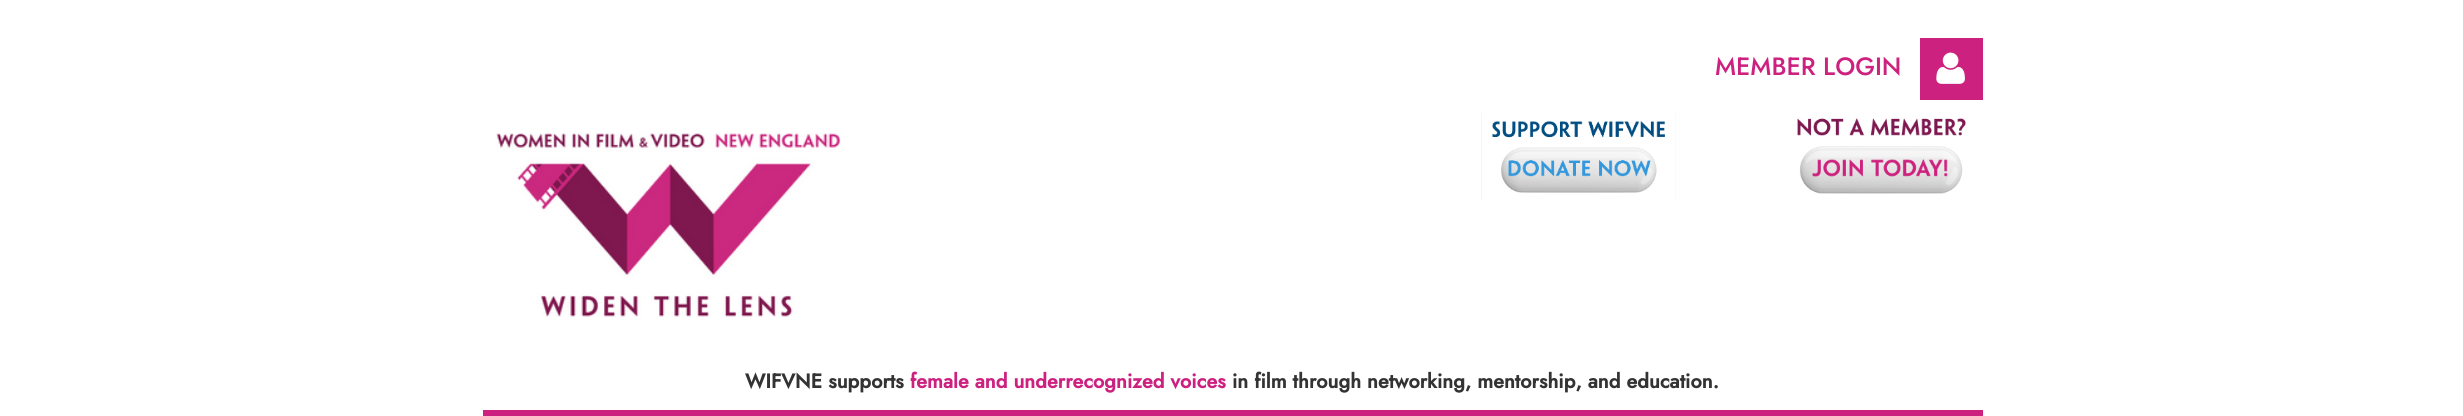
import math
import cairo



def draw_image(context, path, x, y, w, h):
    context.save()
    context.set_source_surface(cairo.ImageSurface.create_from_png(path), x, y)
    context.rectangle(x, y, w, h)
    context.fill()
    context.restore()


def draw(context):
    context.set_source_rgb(1, 1, 1)
    context.paint()
    context.set_source_rgb(205 / 255, 33 / 255, 127 / 255)
    context.rectangle(1920, 38, 63, 62)
    context.fill()
    draw_image(context, "images/1.png", 1936, 52, 29, 32)
    draw_image(context, "images/2.png", 496, 133, 345, 184)
    draw_image(context, "images/3.png", 1481, 113, 195, 87)
    draw_image(context, "images/4.png", 1797, 118, 169, 76)
    context.rectangle(483, 410, 1500, 6)
    context.fill()
    context.select_font_face("Jost Medium")
    context.set_font_size(25)
    context.move_to(1715, 75)
    context.show_text("MEMBER LOGIN")
    context.select_font_face("Jost", cairo.FontSlant.NORMAL, cairo.FontWeight.BOLD)
    context.set_font_size(20)
    context.set_source_rgb(51 / 255, 51 / 255, 51 / 255)
    context.move_to(745, 388)
    context.show_text("WIFVNE supports")
    context.set_source_rgb(205 / 255, 33 / 255, 127 / 255)
    context.move_to(910, 388)
    context.show_text("female and underrecognized voices")
    context.set_source_rgb(51 / 255, 51 / 255, 51 / 255)
    context.move_to(1232, 388)
    context.show_text("in film through networking, mentorship, and education.")


surface = cairo.ImageSurface(cairo.Format.RGB24, 2463, 416)
context = cairo.Context(surface)
options = cairo.FontOptions()
options.set_hint_metrics(cairo.HintMetrics.OFF)
options.set_hint_style(cairo.HintStyle.NONE)
context.set_font_options(options)
context.set_miter_limit(4)
draw(context)
surface.write_to_png("out.png")
